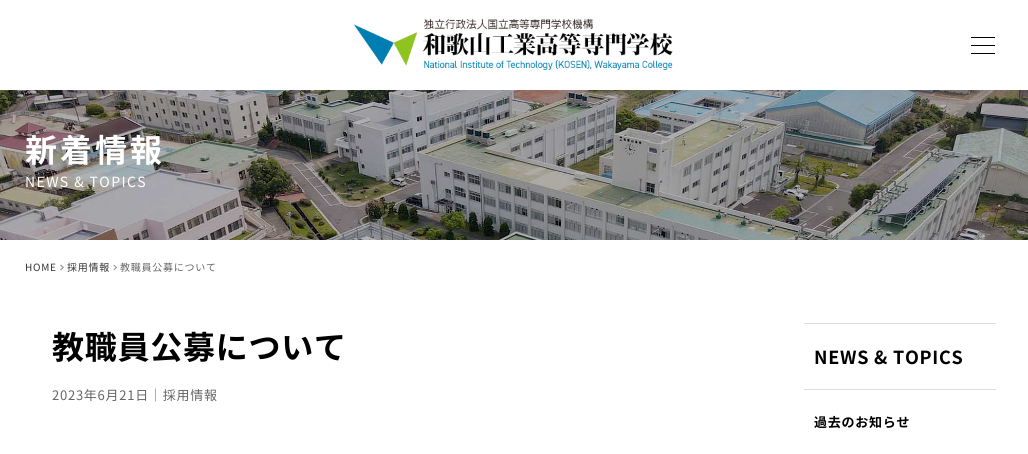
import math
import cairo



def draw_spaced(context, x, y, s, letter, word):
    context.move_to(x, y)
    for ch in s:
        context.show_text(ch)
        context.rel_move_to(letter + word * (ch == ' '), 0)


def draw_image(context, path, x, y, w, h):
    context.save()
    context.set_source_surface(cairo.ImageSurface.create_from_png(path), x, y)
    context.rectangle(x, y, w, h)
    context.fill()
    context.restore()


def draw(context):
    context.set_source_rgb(1, 1, 1)
    context.paint()
    draw_image(context, "images/1.png", 354, 18, 319, 52)
    context.set_source_rgb(0, 0, 0)
    context.rectangle(971, 37, 24, 1)
    context.fill()
    context.rectangle(971, 45, 24, 1)
    context.fill()
    context.rectangle(971, 53, 24, 1)
    context.fill()
    draw_image(context, "images/2.png", 0, 90, 1028, 150)
    context.set_source_rgb(153 / 255, 153 / 255, 153 / 255)
    context.new_path()
    context.move_to(61, 264.5)
    context.line_to(64, 267.5)
    context.line_to(63, 268)
    context.line_to(60, 265.5)
    context.close_path()
    context.fill()
    context.set_source_rgb(221 / 255, 221 / 255, 221 / 255)
    context.rectangle(804, 323, 192, 1)
    context.fill()
    context.rectangle(804, 389, 192, 1)
    context.fill()
    context.select_font_face("Noto Sans JP", cairo.FontSlant.NORMAL, cairo.FontWeight.BOLD)
    context.set_font_size(32)
    context.set_source_rgb(1, 1, 1)
    draw_spaced(context, 25, 162, "新着情報", 3, 0)
    context.select_font_face("Noto Sans JP")
    context.set_font_size(14)
    draw_spaced(context, 25, 187, "NEWS & TOPICS", 1.4, 0)
    context.set_font_size(10)
    context.set_source_rgb(51 / 255, 51 / 255, 51 / 255)
    draw_spaced(context, 25, 271, "HOME", 0.75, 0)
    draw_spaced(context, 67, 271, "採用情報", 0.75, 0)
    context.set_source_rgb(102 / 255, 102 / 255, 102 / 255)
    draw_spaced(context, 120, 271, "教職員公募について", 0.75, 0)
    context.set_source_rgb(153 / 255, 153 / 255, 153 / 255)
    context.new_path()
    context.move_to(63, 267)
    context.line_to(64, 267.5)
    context.line_to(61, 270.5)
    context.line_to(60, 269.5)
    context.close_path()
    context.move_to(114, 264.5)
    context.line_to(117, 267.5)
    context.line_to(116, 268)
    context.line_to(113.5, 265.5)
    context.close_path()
    context.fill()
    context.new_path()
    context.move_to(116, 267)
    context.line_to(117, 267.5)
    context.line_to(114, 270.5)
    context.line_to(113.5, 269.5)
    context.close_path()
    context.fill()
    context.select_font_face("Noto Sans JP", cairo.FontSlant.NORMAL, cairo.FontWeight.BOLD)
    context.set_font_size(32)
    context.set_source_rgb(0, 0, 0)
    draw_spaced(context, 52, 359, "教職員公募について", 0.75, 0)
    context.select_font_face("Noto Sans JP")
    context.set_font_size(13)
    context.set_source_rgb(102 / 255, 102 / 255, 102 / 255)
    draw_spaced(context, 52, 400, "2023年6月21日｜採用情報", 0.75, 0)
    context.select_font_face("Noto Sans JP", cairo.FontSlant.NORMAL, cairo.FontWeight.BOLD)
    context.set_font_size(18)
    context.set_source_rgb(0, 0, 0)
    draw_spaced(context, 814, 364, "NEWS & TOPICS", 0.75, 0)
    context.set_font_size(13)
    draw_spaced(context, 814, 427, "過去のお知らせ", 0.75, 0)


surface = cairo.ImageSurface(cairo.Format.RGB24, 1028, 454)
context = cairo.Context(surface)
options = cairo.FontOptions()
options.set_hint_metrics(cairo.HintMetrics.OFF)
options.set_hint_style(cairo.HintStyle.NONE)
context.set_font_options(options)
context.set_miter_limit(4)
draw(context)
surface.write_to_png("out.png")
